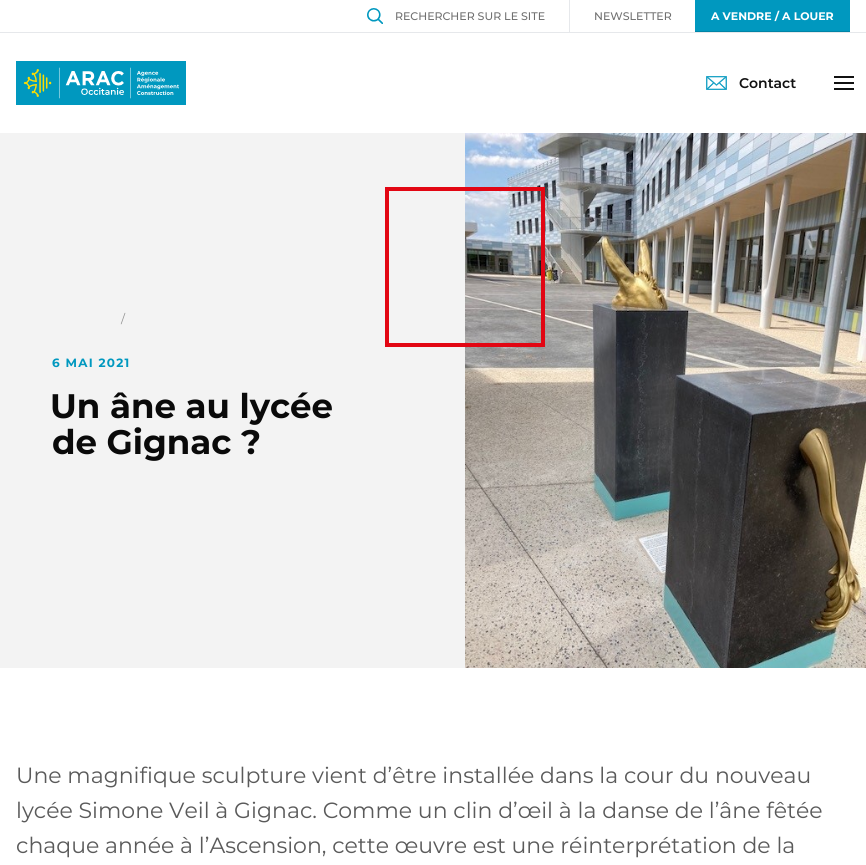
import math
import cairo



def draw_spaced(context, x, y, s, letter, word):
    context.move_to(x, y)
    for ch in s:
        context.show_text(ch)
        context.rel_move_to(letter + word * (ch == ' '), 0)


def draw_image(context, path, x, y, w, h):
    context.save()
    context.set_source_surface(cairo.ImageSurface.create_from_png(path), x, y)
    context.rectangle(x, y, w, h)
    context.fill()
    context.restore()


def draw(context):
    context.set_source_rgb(1, 1, 1)
    context.paint()
    context.set_source_rgb(230 / 255, 232 / 255, 235 / 255)
    context.rectangle(0, 32, 866, 1)
    context.fill()
    draw_image(context, "images/1.png", 367, 8, 16, 16)
    context.rectangle(569, 0, 1, 32)
    context.fill()
    context.set_source_rgb(0, 152 / 255, 191 / 255)
    context.rectangle(695, 0, 155, 31)
    context.fill()
    context.set_source_rgb(0, 132 / 255, 166 / 255)
    context.rectangle(695, 31, 155, 1)
    context.fill()
    draw_image(context, "images/2.png", 16, 61, 170, 44)
    draw_image(context, "images/3.png", 706, 76, 21, 14)
    context.set_source_rgb(17 / 255, 17 / 255, 17 / 255)
    context.rectangle(834, 82, 20, 2)
    context.fill()
    context.rectangle(834, 76, 20, 2)
    context.fill()
    context.rectangle(834, 88, 20, 2)
    context.fill()
    context.set_source_rgb(243 / 255, 243 / 255, 243 / 255)
    context.rectangle(0, 133, 465, 535)
    context.fill()
    draw_image(context, "images/4.png", 465, 133, 401, 535)
    context.rectangle(387, 189, 156, 156)
    context.set_source_rgb(226 / 255, 6 / 255, 19 / 255)
    context.set_line_width(4)
    context.stroke()
    context.select_font_face("Montserrat Medium")
    context.set_font_size(11)
    context.set_source_rgb(112 / 255, 112 / 255, 112 / 255)
    context.move_to(395, 20)
    context.show_text("RECHERCHER SUR LE SITE")
    context.move_to(594, 20)
    context.show_text("NEWSLETTER")
    context.select_font_face("Montserrat", cairo.FontSlant.NORMAL, cairo.FontWeight.BOLD)
    context.set_source_rgb(1, 1, 1)
    context.move_to(711, 20)
    context.show_text("A VENDRE / A LOUER")
    context.select_font_face("Montserrat SemiBold")
    context.set_font_size(14)
    context.set_source_rgb(17 / 255, 17 / 255, 17 / 255)
    context.move_to(739, 88)
    context.show_text("Contact")
    context.select_font_face("Montserrat")
    context.set_font_size(12)
    context.set_source_rgb(145 / 255, 145 / 255, 145 / 255)
    context.move_to(121, 323)
    context.show_text("/")
    context.select_font_face("Montserrat", cairo.FontSlant.NORMAL, cairo.FontWeight.BOLD)
    context.set_source_rgb(0, 152 / 255, 191 / 255)
    draw_spaced(context, 52, 367, "6 MAI 2021", 1.25, 0)
    context.set_font_size(34)
    context.set_source_rgb(10 / 255, 10 / 255, 10 / 255)
    context.move_to(50, 418)
    context.show_text("Un âne au lycée")
    context.move_to(52, 454)
    context.show_text("de Gignac ?")
    context.select_font_face("Montserrat")
    context.set_font_size(22)
    context.set_source_rgb(90 / 255, 90 / 255, 90 / 255)
    context.move_to(16, 783)
    context.show_text("Une magnifique sculpture vient d’être installée dans la cour du nouveau")
    context.move_to(16, 818)
    context.show_text("lycée Simone Veil à Gignac. Comme un clin d’œil à la danse de l’âne fêtée")
    context.move_to(16, 853)
    context.show_text("chaque année à l’Ascension, cette œuvre est une réinterprétation de la")


surface = cairo.ImageSurface(cairo.Format.RGB24, 866, 865)
context = cairo.Context(surface)
options = cairo.FontOptions()
options.set_hint_metrics(cairo.HintMetrics.OFF)
options.set_hint_style(cairo.HintStyle.NONE)
context.set_font_options(options)
context.set_miter_limit(4)
draw(context)
surface.write_to_png("out.png")
